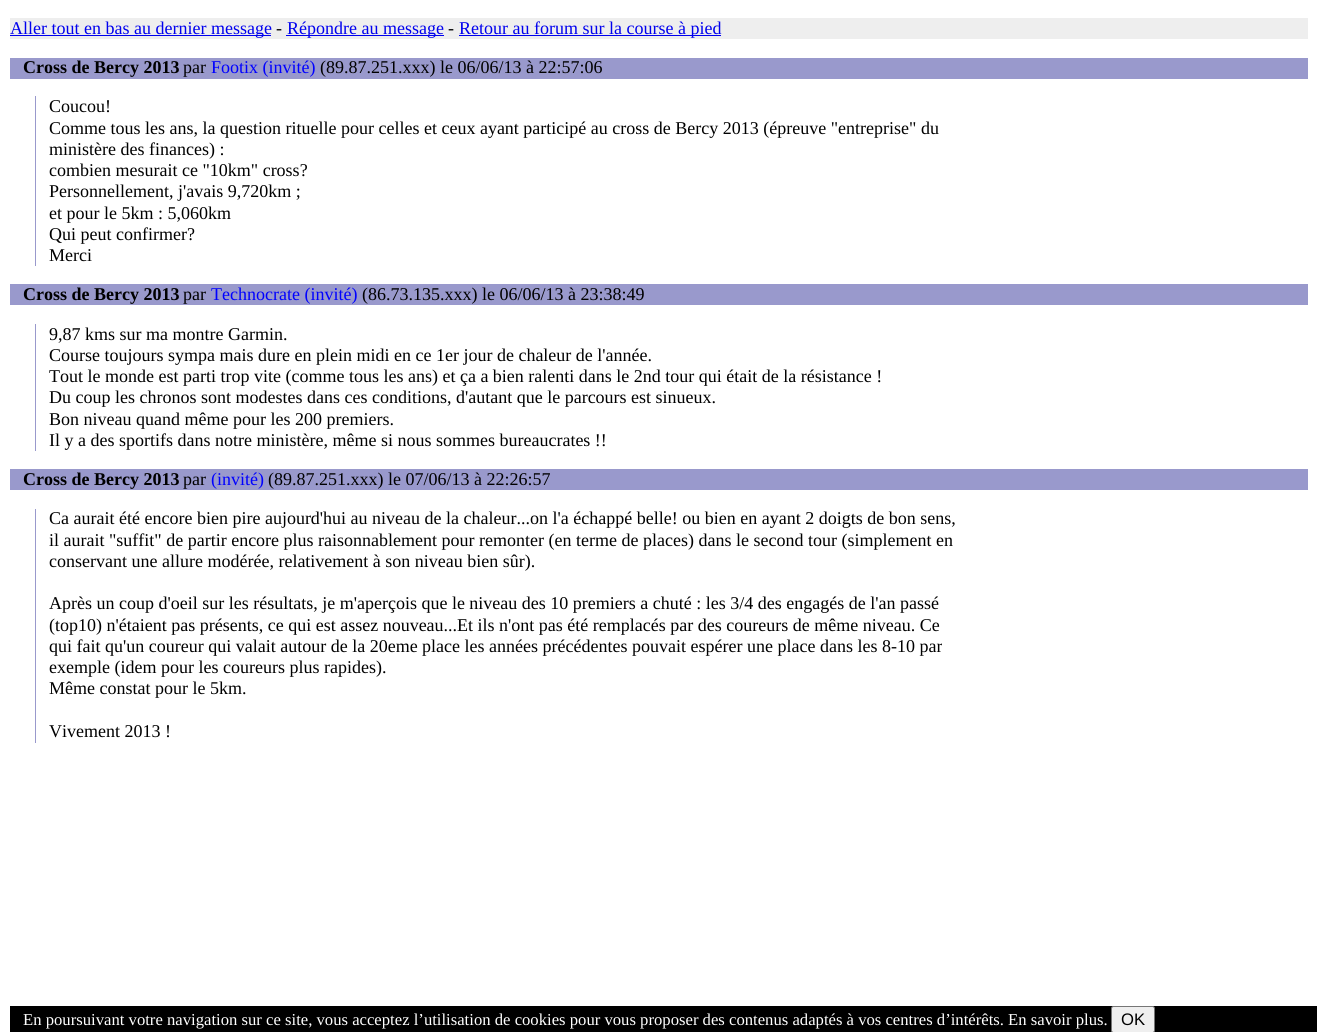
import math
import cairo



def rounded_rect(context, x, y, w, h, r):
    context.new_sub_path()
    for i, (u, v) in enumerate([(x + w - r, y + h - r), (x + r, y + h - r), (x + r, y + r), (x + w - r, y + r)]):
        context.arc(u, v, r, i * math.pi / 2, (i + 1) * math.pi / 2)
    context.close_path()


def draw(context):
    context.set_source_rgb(1, 1, 1)
    context.paint()
    context.set_source_rgb(238 / 255, 238 / 255, 238 / 255)
    context.rectangle(10, 18, 1298, 21)
    context.fill()
    context.set_source_rgb(0, 0, 238 / 255)
    context.rectangle(10, 35, 261, 1)
    context.fill()
    context.rectangle(286, 35, 158, 1)
    context.fill()
    context.rectangle(459, 35, 262, 1)
    context.fill()
    context.set_source_rgb(153 / 255, 153 / 255, 204 / 255)
    context.rectangle(10, 58, 1298, 21)
    context.fill()
    context.rectangle(35, 96, 1, 170)
    context.fill()
    context.rectangle(10, 284, 1298, 21)
    context.fill()
    context.rectangle(35, 324, 1, 127)
    context.fill()
    context.rectangle(10, 469, 1298, 21)
    context.fill()
    context.rectangle(35, 509, 1, 234)
    context.fill()
    context.set_source_rgb(0, 0, 0)
    context.rectangle(10, 1006, 1307, 26)
    context.fill()
    context.set_source_rgb(239 / 255, 239 / 255, 239 / 255)
    rounded_rect(context, 1111.5, 1006.5, 43, 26, 2)
    context.fill_preserve()
    context.set_source_rgb(118 / 255, 118 / 255, 118 / 255)
    context.set_line_width(1)
    context.stroke()
    context.select_font_face("Liberation Serif")
    context.set_font_size(18)
    context.set_source_rgb(0, 0, 238 / 255)
    context.move_to(10, 34)
    context.show_text("Aller tout en bas au dernier message")
    context.set_source_rgb(0, 0, 0)
    context.move_to(276, 34)
    context.show_text("-")
    context.set_source_rgb(0, 0, 238 / 255)
    context.move_to(287, 34)
    context.show_text("Répondre au message")
    context.set_source_rgb(0, 0, 0)
    context.move_to(448, 34)
    context.show_text("-")
    context.set_source_rgb(0, 0, 238 / 255)
    context.move_to(459, 34)
    context.show_text("Retour au forum sur la course à pied")
    context.select_font_face("Liberation Serif", cairo.FontSlant.NORMAL, cairo.FontWeight.BOLD)
    context.set_source_rgb(0, 0, 0)
    context.move_to(23, 73)
    context.show_text("Cross de Bercy 2013")
    context.select_font_face("Liberation Serif")
    context.move_to(183, 73)
    context.show_text("par")
    context.set_source_rgb(0, 0, 1)
    context.move_to(211, 73)
    context.show_text("Footix (invité)")
    context.set_source_rgb(0, 0, 0)
    context.move_to(320, 73)
    context.show_text("(89.87.251.xxx) le 06/06/13 à 22:57:06")
    context.move_to(49, 112)
    context.show_text("Coucou!")
    context.move_to(49, 134)
    context.show_text("Comme tous les ans, la question rituelle pour celles et ceux ayant participé au cross de Bercy 2013 (épreuve \"entreprise\" du")
    context.move_to(49, 155)
    context.show_text("ministère des finances) :")
    context.move_to(49, 176)
    context.show_text("combien mesurait ce \"10km\" cross?")
    context.move_to(49, 197)
    context.show_text("Personnellement, j'avais 9,720km ;")
    context.move_to(49, 219)
    context.show_text("et pour le 5km : 5,060km")
    context.move_to(49, 240)
    context.show_text("Qui peut confirmer?")
    context.move_to(49, 261)
    context.show_text("Merci")
    context.select_font_face("Liberation Serif", cairo.FontSlant.NORMAL, cairo.FontWeight.BOLD)
    context.move_to(23, 300)
    context.show_text("Cross de Bercy 2013")
    context.select_font_face("Liberation Serif")
    context.move_to(183, 300)
    context.show_text("par")
    context.set_source_rgb(0, 0, 1)
    context.move_to(211, 300)
    context.show_text("Technocrate (invité)")
    context.set_source_rgb(0, 0, 0)
    context.move_to(362, 300)
    context.show_text("(86.73.135.xxx) le 06/06/13 à 23:38:49")
    context.move_to(49, 340)
    context.show_text("9,87 kms sur ma montre Garmin.")
    context.move_to(49, 361)
    context.show_text("Course toujours sympa mais dure en plein midi en ce 1er jour de chaleur de l'année.")
    context.move_to(49, 382)
    context.show_text("Tout le monde est parti trop vite (comme tous les ans) et ça a bien ralenti dans le 2nd tour qui était de la résistance !")
    context.move_to(49, 403)
    context.show_text("Du coup les chronos sont modestes dans ces conditions, d'autant que le parcours est sinueux.")
    context.move_to(49, 425)
    context.show_text("Bon niveau quand même pour les 200 premiers.")
    context.move_to(49, 446)
    context.show_text("Il y a des sportifs dans notre ministère, même si nous sommes bureaucrates !!")
    context.select_font_face("Liberation Serif", cairo.FontSlant.NORMAL, cairo.FontWeight.BOLD)
    context.move_to(23, 485)
    context.show_text("Cross de Bercy 2013")
    context.select_font_face("Liberation Serif")
    context.move_to(183, 485)
    context.show_text("par")
    context.set_source_rgb(0, 0, 1)
    context.move_to(211, 485)
    context.show_text("(invité)")
    context.set_source_rgb(0, 0, 0)
    context.move_to(268, 485)
    context.show_text("(89.87.251.xxx) le 07/06/13 à 22:26:57")
    context.move_to(49, 524)
    context.show_text("Ca aurait été encore bien pire aujourd'hui au niveau de la chaleur...on l'a échappé belle! ou bien en ayant 2 doigts de bon sens,")
    context.move_to(49, 546)
    context.show_text("il aurait \"suffit\" de partir encore plus raisonnablement pour remonter (en terme de places) dans le second tour (simplement en")
    context.move_to(49, 567)
    context.show_text("conservant une allure modérée, relativement à son niveau bien sûr).")
    context.move_to(49, 609)
    context.show_text("Après un coup d'oeil sur les résultats, je m'aperçois que le niveau des 10 premiers a chuté : les 3/4 des engagés de l'an passé")
    context.move_to(49, 631)
    context.show_text("(top10) n'étaient pas présents, ce qui est assez nouveau...Et ils n'ont pas été remplacés par des coureurs de même niveau. Ce")
    context.move_to(49, 652)
    context.show_text("qui fait qu'un coureur qui valait autour de la 20eme place les années précédentes pouvait espérer une place dans les 8-10 par")
    context.move_to(49, 673)
    context.show_text("exemple (idem pour les coureurs plus rapides).")
    context.move_to(49, 694)
    context.show_text("Même constat pour le 5km.")
    context.move_to(49, 737)
    context.show_text("Vivement 2013 !")
    context.set_font_size(16.67)
    context.set_source_rgb(1, 1, 1)
    context.move_to(23, 1025)
    context.show_text("En poursuivant votre navigation sur ce site, vous acceptez l’utilisation de cookies pour vous proposer des contenus adaptés à vos centres d’intérêts. En savoir plus.")
    context.select_font_face("Liberation Sans")
    context.set_source_rgb(0, 0, 0)
    context.move_to(1121, 1025)
    context.show_text("OK")


surface = cairo.ImageSurface(cairo.Format.RGB24, 1317, 1032)
context = cairo.Context(surface)
options = cairo.FontOptions()
options.set_hint_metrics(cairo.HintMetrics.OFF)
options.set_hint_style(cairo.HintStyle.NONE)
context.set_font_options(options)
context.set_miter_limit(4)
draw(context)
surface.write_to_png("out.png")
